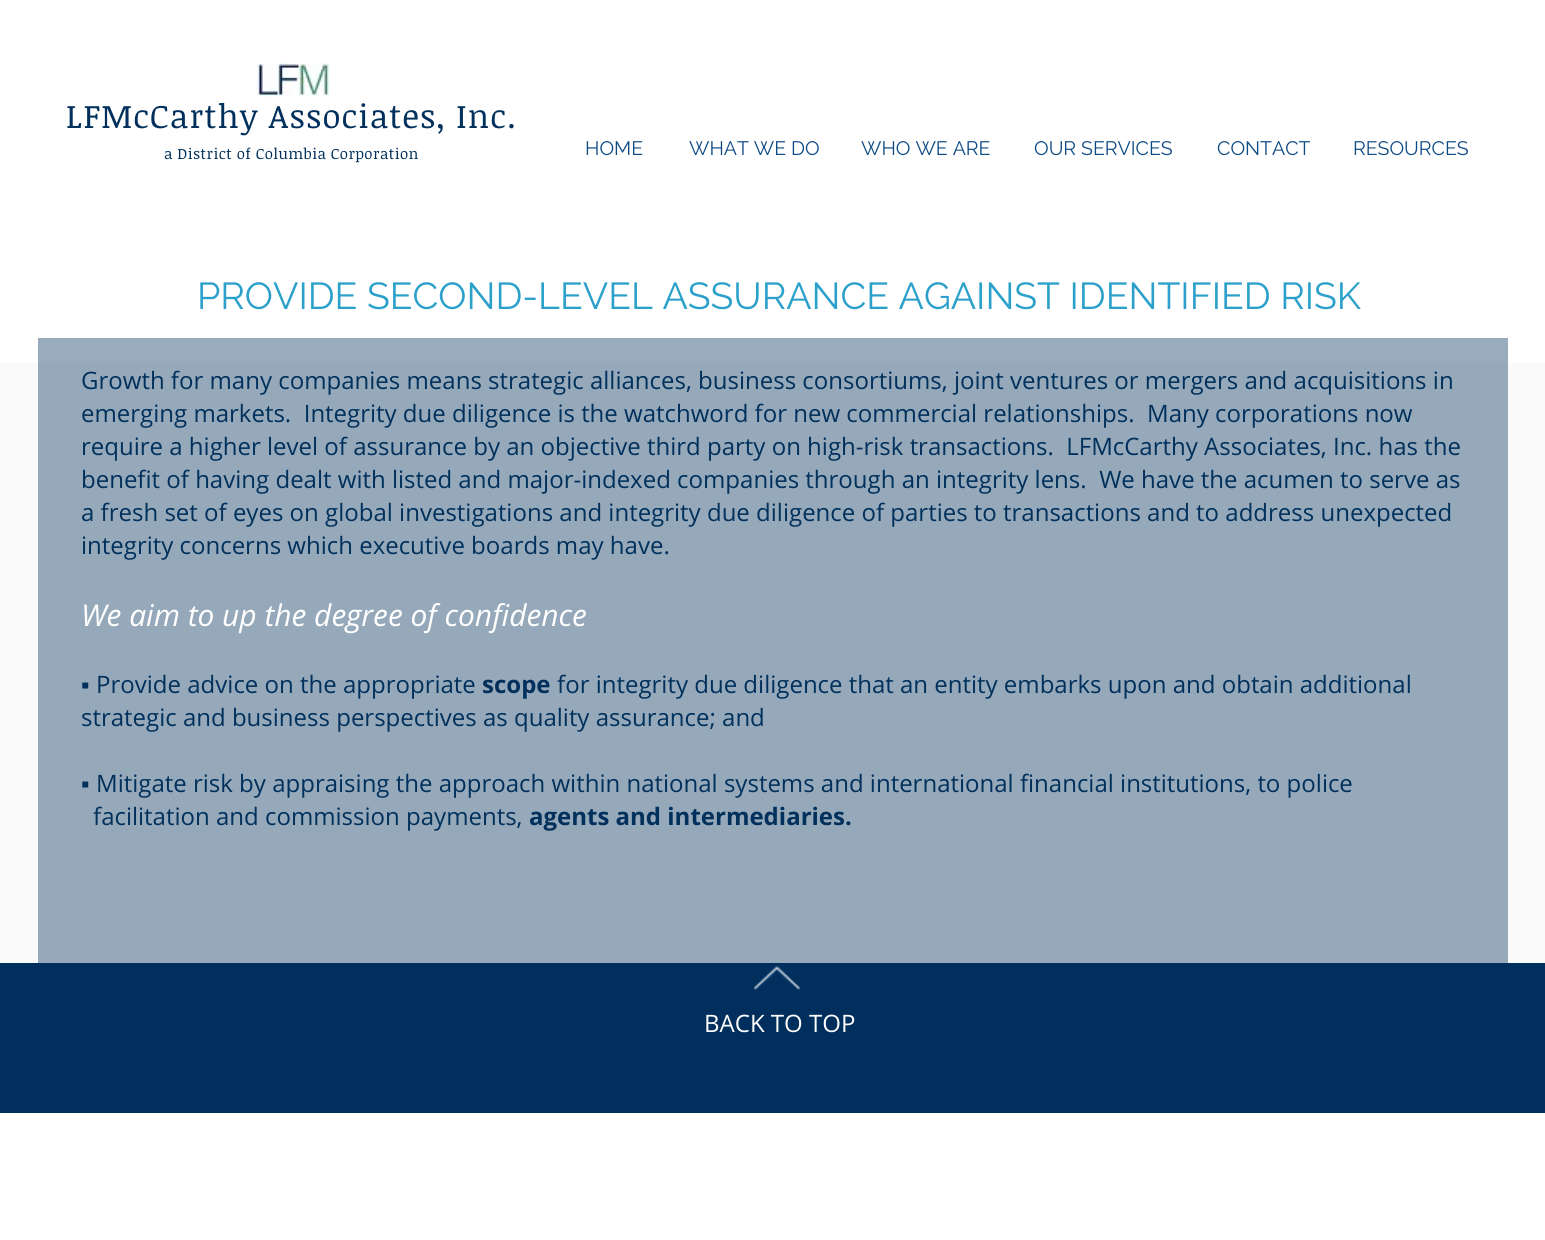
import math
import cairo



def draw_spaced(context, x, y, s, letter, word):
    context.move_to(x, y)
    for ch in s:
        context.show_text(ch)
        context.rel_move_to(letter + word * (ch == ' '), 0)


def draw_image(context, path, x, y, w, h):
    context.save()
    context.set_source_surface(cairo.ImageSurface.create_from_png(path), x, y)
    context.rectangle(x, y, w, h)
    context.fill()
    context.restore()


def draw(context):
    context.set_source_rgb(1, 1, 1)
    context.paint()
    context.set_source_rgb(153 / 255, 172 / 255, 189 / 255)
    context.rectangle(38, 338, 1470, 25)
    context.fill()
    draw_image(context, "images/1.png", 256, 63, 74, 34)
    context.set_source_rgb(250 / 255, 250 / 255, 250 / 255)
    context.rectangle(0, 363, 1545, 600)
    context.fill()
    context.set_source_rgb(150 / 255, 169 / 255, 186 / 255)
    context.rectangle(38, 363, 1470, 600)
    context.fill()
    context.set_source_rgb(0, 46 / 255, 93 / 255)
    context.rectangle(0, 963, 1545, 150)
    context.fill()
    draw_image(context, "images/2.png", 754, 966, 46, 24)
    context.select_font_face("Noticia Text")
    context.set_font_size(33)
    context.set_source_rgb(0, 48 / 255, 91 / 255)
    draw_spaced(context, 66, 128, "LFMcCarthy Associates, Inc.", 1, 0)
    context.set_font_size(15)
    draw_spaced(context, 164, 159, "a District of Columbia Corporation", 0.45, 0)
    context.select_font_face("Raleway")
    context.set_font_size(19.5)
    context.set_source_rgb(15 / 255, 76 / 255, 133 / 255)
    context.move_to(585, 155)
    context.show_text("HOME")
    context.move_to(689, 155)
    context.show_text("WHAT WE DO")
    context.move_to(861, 155)
    context.show_text("WHO WE ARE")
    context.move_to(1034, 155)
    context.show_text("OUR SERVICES")
    context.move_to(1217, 155)
    context.show_text("CONTACT")
    context.move_to(1353, 155)
    context.show_text("RESOURCES")
    context.set_font_size(37.5)
    context.set_source_rgb(42 / 255, 160 / 255, 202 / 255)
    context.move_to(197, 309)
    context.show_text("PROVIDE SECOND-LEVEL ASSURANCE AGAINST IDENTIFIED RISK")
    context.select_font_face("Open Sans")
    context.set_font_size(24)
    context.set_source_rgb(0, 48 / 255, 91 / 255)
    context.move_to(81, 389)
    context.show_text("Growth for many companies means strategic alliances, business consortiums, joint ventures or mergers and acquisitions in")
    context.move_to(81, 422)
    context.show_text("emerging markets.  Integrity due diligence is the watchword for new commercial relationships.  Many corporations now")
    context.move_to(81, 455)
    context.show_text("require a higher level of assurance by an objective third party on high-risk transactions.  LFMcCarthy Associates, Inc. has the")
    context.move_to(81, 488)
    context.show_text("benefit of having dealt with listed and major-indexed companies through an integrity lens.  We have the acumen to serve as")
    context.move_to(81, 521)
    context.show_text("a fresh set of eyes on global investigations and integrity due diligence of parties to transactions and to address unexpected")
    context.move_to(81, 554)
    context.show_text("integrity concerns which executive boards may have.")
    context.select_font_face("Open Sans", cairo.FontSlant.ITALIC)
    context.set_font_size(30)
    context.set_source_rgb(1, 1, 1)
    context.move_to(81, 626)
    context.show_text("We aim to up the degree of confidence")
    context.select_font_face("Liberation Sans")
    context.set_font_size(24)
    context.set_source_rgb(0, 48 / 255, 91 / 255)
    context.move_to(81, 693)
    context.show_text("▪")
    context.select_font_face("Open Sans")
    context.move_to(96, 693)
    context.show_text("Provide advice on the appropriate")
    context.select_font_face("Open Sans", cairo.FontSlant.NORMAL, cairo.FontWeight.BOLD)
    context.move_to(482, 693)
    context.show_text("scope")
    context.select_font_face("Open Sans")
    context.move_to(557, 693)
    context.show_text("for integrity due diligence that an entity embarks upon and obtain additional")
    context.move_to(81, 726)
    context.show_text("strategic and business perspectives as quality assurance; and")
    context.select_font_face("Liberation Sans")
    context.move_to(81, 792)
    context.show_text("▪")
    context.select_font_face("Open Sans")
    context.move_to(96, 792)
    context.show_text("Mitigate risk by appraising the approach within national systems and international financial institutions, to police")
    context.move_to(93, 825)
    context.show_text("facilitation and commission payments,")
    context.select_font_face("Open Sans", cairo.FontSlant.NORMAL, cairo.FontWeight.BOLD)
    context.move_to(529, 825)
    context.show_text("agents and intermediaries.")
    context.select_font_face("Open Sans")
    context.set_source_rgb(1, 1, 1)
    context.move_to(704, 1032)
    context.show_text("BACK TO TOP")


surface = cairo.ImageSurface(cairo.Format.RGB24, 1545, 1240)
context = cairo.Context(surface)
options = cairo.FontOptions()
options.set_hint_metrics(cairo.HintMetrics.OFF)
options.set_hint_style(cairo.HintStyle.NONE)
context.set_font_options(options)
context.set_miter_limit(4)
draw(context)
surface.write_to_png("out.png")
